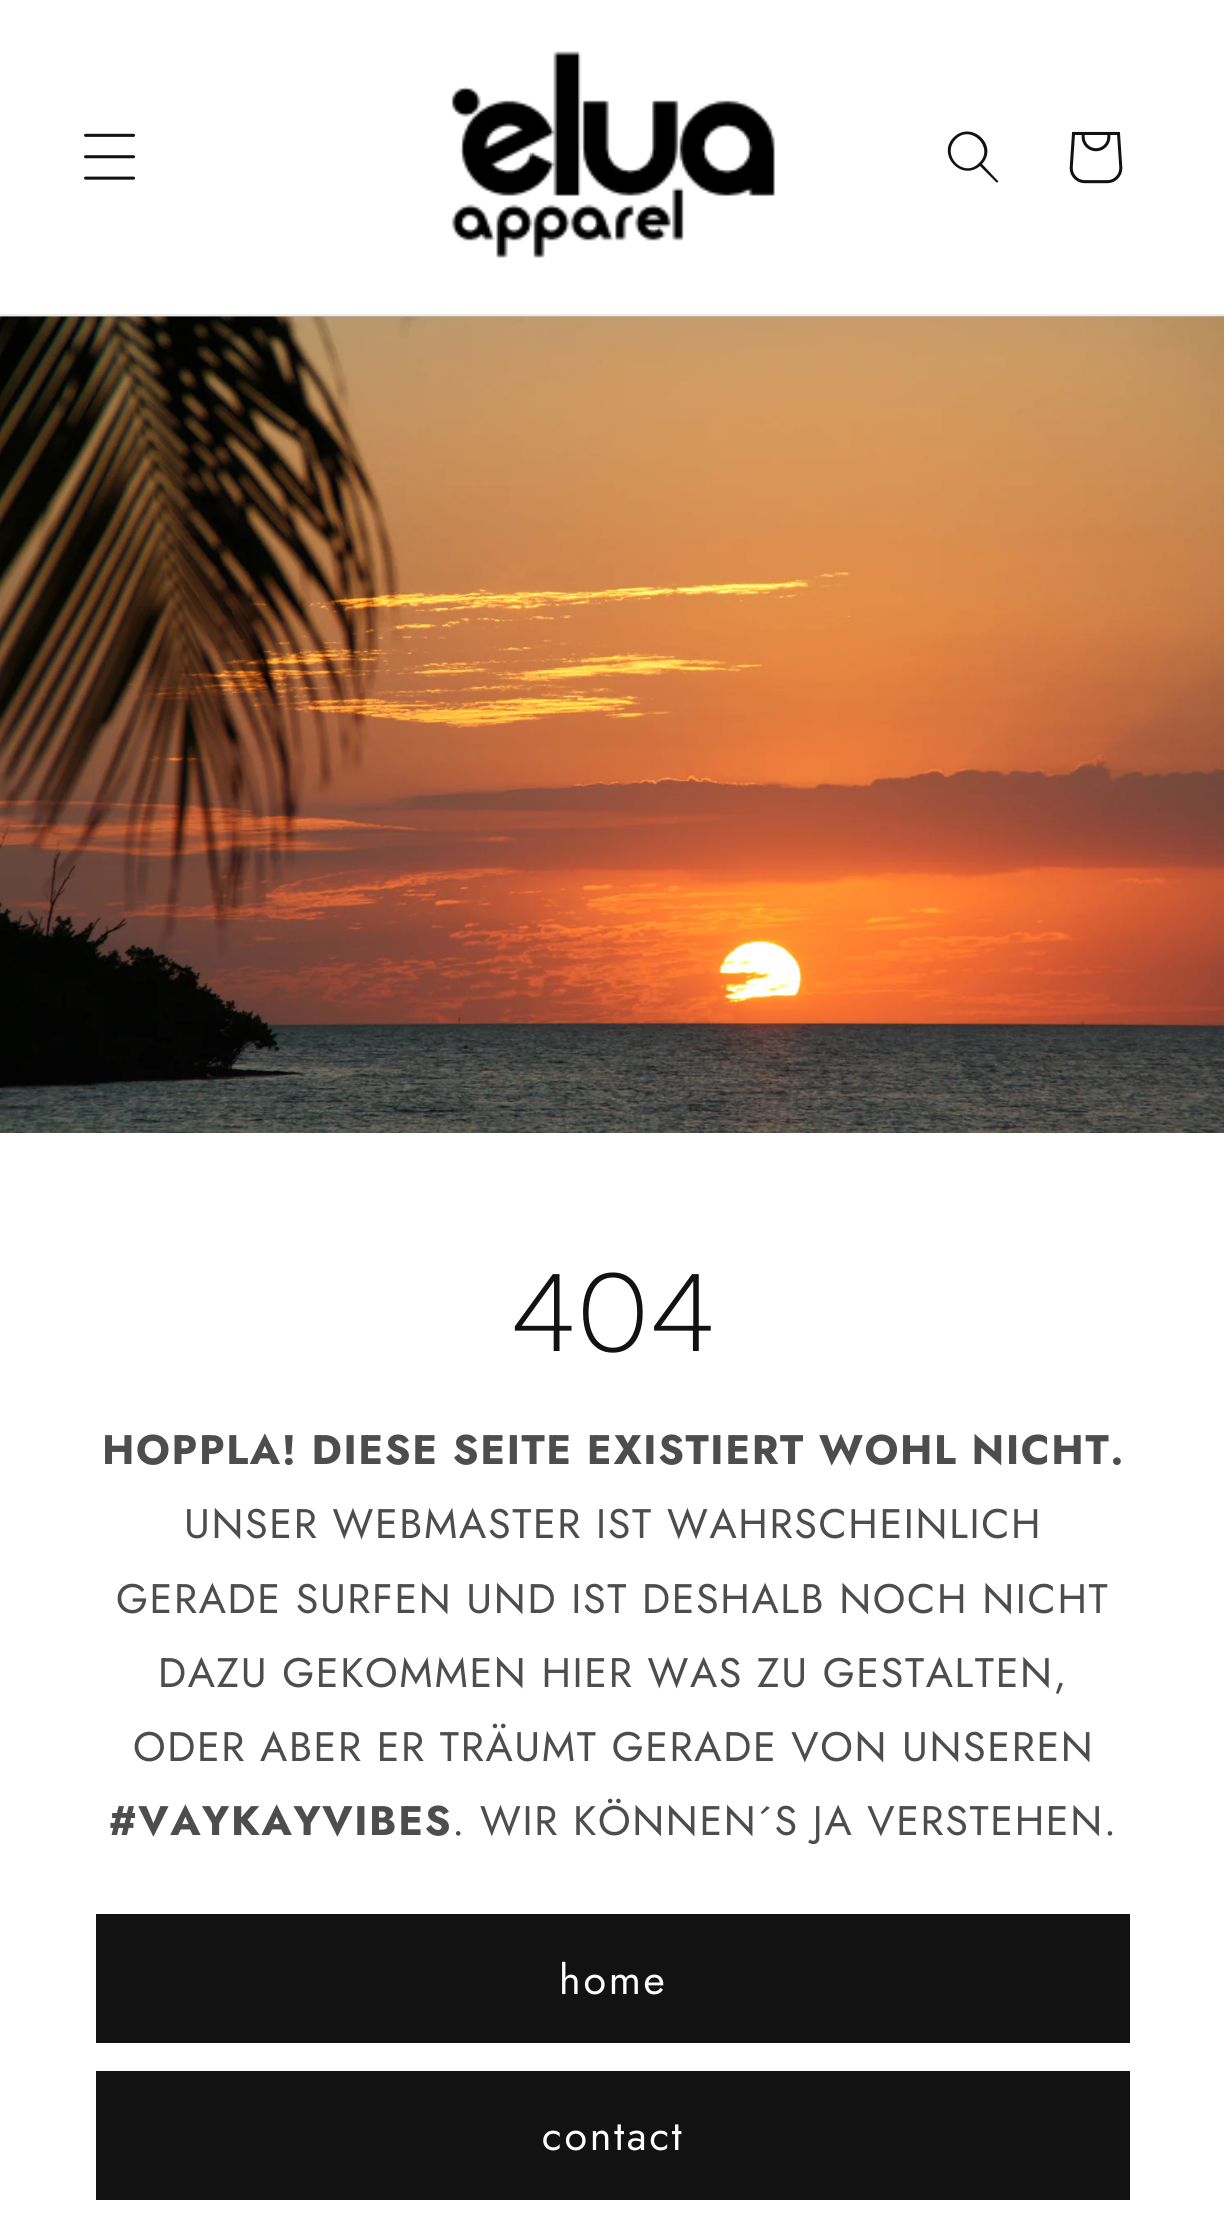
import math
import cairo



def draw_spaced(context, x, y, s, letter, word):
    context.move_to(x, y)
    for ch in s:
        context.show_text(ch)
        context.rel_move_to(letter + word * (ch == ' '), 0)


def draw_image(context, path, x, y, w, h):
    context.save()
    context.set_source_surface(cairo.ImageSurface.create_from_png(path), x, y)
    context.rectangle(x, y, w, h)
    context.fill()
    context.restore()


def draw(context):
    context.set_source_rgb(1, 1, 1)
    context.paint()
    context.set_source_rgb(232 / 255, 232 / 255, 232 / 255)
    context.rectangle(0, 316, 1224, 1)
    context.fill()
    draw_image(context, "images/4.png", 0, 316, 1224, 817)
    context.set_source_rgba(18 / 255, 18 / 255, 18 / 255, 0.08)
    context.rectangle(0, 314, 1224, 3)
    context.fill()
    draw_image(context, "images/1.png", 84, 133, 52, 47)
    draw_image(context, "images/2.png", 451, 51, 324, 207)
    context.set_source_rgb(18 / 255, 18 / 255, 18 / 255)
    context.set_fill_rule(cairo.FillRule.EVEN_ODD)
    context.new_path()
    context.move_to(979, 163)
    context.curve_to(964, 179, 940, 155, 956, 139)
    context.curve_to(971, 124, 995, 148, 979, 163)
    context.move_to(980, 166)
    context.curve_to(961, 182, 936, 154, 954, 137)
    context.curve_to(972, 120, 999, 146, 982, 164)
    context.line_to(998, 181)
    context.curve_to(999, 182, 997, 183, 996, 182)
    context.close_path()
    context.fill()
    draw_image(context, "images/3.png", 1069, 131, 54, 53)
    context.rectangle(96, 1914, 1034, 129)
    context.fill()
    context.rectangle(96, 2071, 1034, 129)
    context.fill()
    context.select_font_face("Prompt Light")
    context.set_font_size(110)
    draw_spaced(context, 511, 1351, "404", 1.65, 0)
    context.select_font_face("Jost", cairo.FontSlant.NORMAL, cairo.FontWeight.BOLD)
    context.set_font_size(41.25)
    context.set_source_rgb(77 / 255, 77 / 255, 77 / 255)
    draw_spaced(context, 102, 1464, "HOPPLA! DIESE SEITE EXISTIERT WOHL NICHT.", 1.65, 0)
    context.select_font_face("Jost")
    draw_spaced(context, 184, 1538, "UNSER WEBMASTER IST WAHRSCHEINLICH", 1.65, 0)
    draw_spaced(context, 116, 1613, "GERADE SURFEN UND IST DESHALB NOCH NICHT", 1.65, 0)
    draw_spaced(context, 158, 1687, "DAZU GEKOMMEN HIER WAS ZU GESTALTEN,", 1.65, 0)
    draw_spaced(context, 133, 1761, "ODER ABER ER TRÄUMT GERADE VON UNSEREN", 1.65, 0)
    context.select_font_face("Jost", cairo.FontSlant.NORMAL, cairo.FontWeight.BOLD)
    draw_spaced(context, 109, 1835, "#VAYKAYVIBES", 1.65, 0)
    context.select_font_face("Jost")
    draw_spaced(context, 452, 1835, ". WIR KÖNNEN´S JA VERSTEHEN.", 1.65, 0)
    context.set_source_rgb(1, 1, 1)
    draw_spaced(context, 559, 1994, "home", 2.75, 0)
    draw_spaced(context, 542, 2150, "contact", 2.75, 0)


surface = cairo.ImageSurface(cairo.Format.RGB24, 1224, 2214)
context = cairo.Context(surface)
options = cairo.FontOptions()
options.set_hint_metrics(cairo.HintMetrics.OFF)
options.set_hint_style(cairo.HintStyle.NONE)
context.set_font_options(options)
context.set_miter_limit(4)
draw(context)
surface.write_to_png("out.png")
